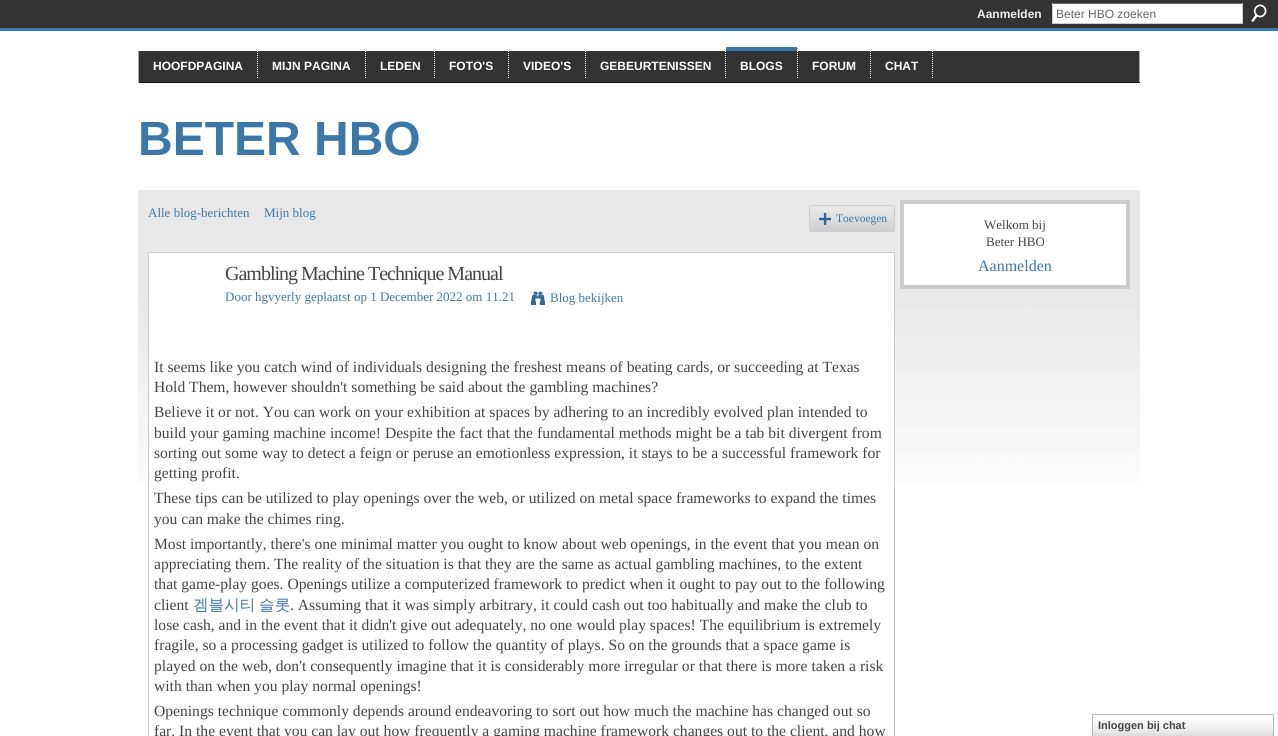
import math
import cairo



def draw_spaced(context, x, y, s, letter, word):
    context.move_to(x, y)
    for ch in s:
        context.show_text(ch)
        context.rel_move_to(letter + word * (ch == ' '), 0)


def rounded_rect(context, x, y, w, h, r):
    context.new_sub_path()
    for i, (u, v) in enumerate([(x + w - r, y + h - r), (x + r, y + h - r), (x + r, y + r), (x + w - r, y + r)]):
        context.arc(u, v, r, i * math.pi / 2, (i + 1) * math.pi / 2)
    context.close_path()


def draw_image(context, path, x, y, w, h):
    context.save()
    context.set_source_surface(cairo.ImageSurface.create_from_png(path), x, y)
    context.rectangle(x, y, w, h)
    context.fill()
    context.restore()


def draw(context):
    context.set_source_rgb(1, 1, 1)
    context.paint()
    context.set_source_rgb(51 / 255, 51 / 255, 51 / 255)
    context.rectangle(0, 0, 1278, 28)
    context.fill()
    context.set_source_rgb(1, 1, 1)
    context.rectangle(1053, 4, 189, 19)
    context.fill()
    context.set_source_rgb(102 / 255, 102 / 255, 102 / 255)
    context.rectangle(1052, 3, 191, 1)
    context.fill()
    context.set_source_rgb(204 / 255, 204 / 255, 204 / 255)
    context.rectangle(1242, 3, 1, 21)
    context.fill()
    context.rectangle(1052, 23, 191, 1)
    context.fill()
    context.rectangle(1052, 3, 1, 21)
    context.fill()
    draw_image(context, "images/1.png", 1251, 4, 16, 18)
    context.set_source_rgb(60 / 255, 120 / 255, 167 / 255)
    context.rectangle(0, 28, 1278, 3)
    context.fill()
    context.set_source_rgb(51 / 255, 51 / 255, 51 / 255)
    context.rectangle(139, 51, 1000, 31)
    context.fill()
    context.set_source_rgb(170 / 255, 170 / 255, 170 / 255)
    context.rectangle(1139, 51, 1, 32)
    context.fill()
    context.set_source_rgb(17 / 255, 17 / 255, 17 / 255)
    context.rectangle(138, 82, 1002, 1)
    context.fill()
    context.set_source_rgb(170 / 255, 170 / 255, 170 / 255)
    context.rectangle(138, 51, 1, 32)
    context.fill()
    context.new_path()
    context.move_to(257.5, 47)
    context.line_to(257.5, 78)
    context.set_source_rgb(1, 1, 1)
    context.set_line_width(1)
    context.set_dash([1, 1])
    context.stroke()
    context.new_path()
    context.move_to(365.5, 47)
    context.line_to(365.5, 78)
    context.stroke()
    context.new_path()
    context.move_to(434.5, 47)
    context.line_to(434.5, 78)
    context.stroke()
    context.new_path()
    context.move_to(508.5, 47)
    context.line_to(508.5, 78)
    context.stroke()
    context.new_path()
    context.move_to(585.5, 47)
    context.line_to(585.5, 78)
    context.stroke()
    context.new_path()
    context.move_to(725.5, 47)
    context.line_to(725.5, 78)
    context.stroke()
    context.set_source_rgb(60 / 255, 120 / 255, 167 / 255)
    context.new_path()
    context.move_to(726, 47)
    context.line_to(798, 47)
    context.line_to(797, 51)
    context.line_to(726, 51)
    context.close_path()
    context.fill()
    context.new_path()
    context.move_to(797.5, 47)
    context.line_to(797.5, 78)
    context.set_source_rgb(1, 1, 1)
    context.stroke()
    context.new_path()
    context.move_to(870.5, 47)
    context.line_to(870.5, 78)
    context.stroke()
    context.new_path()
    context.move_to(932.5, 47)
    context.line_to(932.5, 78)
    context.stroke()
    draw_image(context, "images/2.png", 138, 190, 1002, 292)
    draw_image(context, "images/3.png", 809, 212, 86, 20)
    rounded_rect(context, 809.5, 205.5, 85, 26, 2.5)
    context.set_source_rgb(203 / 255, 203 / 255, 203 / 255)
    context.set_dash([])
    context.stroke()
    draw_image(context, "images/4.png", 819, 213, 12, 12)
    context.set_source_rgb(1, 1, 1)
    context.rectangle(149, 253, 745, 229)
    context.fill()
    context.rectangle(148.5, 252.5, 746, 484)
    context.set_source_rgb(204 / 255, 204 / 255, 204 / 255)
    context.stroke()
    draw_image(context, "images/5.png", 531, 291, 14, 14)
    context.set_source_rgb(1, 1, 1)
    context.rectangle(904, 204, 222, 81)
    context.fill()
    context.rectangle(900.5, 200.5, 229, 88)
    context.set_source_rgb(204 / 255, 204 / 255, 204 / 255)
    context.stroke()
    context.rectangle(902.5, 202.5, 225, 84)
    context.set_source_rgb(203 / 255, 203 / 255, 203 / 255)
    context.set_line_width(3)
    context.stroke()
    draw_image(context, "images/6.png", 1093, 720, 180, 16)
    context.rectangle(1092.5, 714.5, 181, 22)
    context.set_source_rgb(183 / 255, 183 / 255, 183 / 255)
    context.set_line_width(1)
    context.stroke()
    context.select_font_face("Liberation Sans", cairo.FontSlant.NORMAL, cairo.FontWeight.BOLD)
    context.set_font_size(12)
    context.set_source_rgb(238 / 255, 238 / 255, 238 / 255)
    context.move_to(977, 18)
    context.show_text("Aanmelden")
    context.select_font_face("Liberation Sans")
    context.set_source_rgb(102 / 255, 102 / 255, 102 / 255)
    context.move_to(1056, 18)
    context.show_text("Beter HBO zoeken")
    context.select_font_face("Liberation Sans", cairo.FontSlant.NORMAL, cairo.FontWeight.BOLD)
    context.set_source_rgb(1, 1, 1)
    context.move_to(153, 70)
    context.show_text("HOOFDPAGINA")
    context.move_to(272, 70)
    context.show_text("MIJN PAGINA")
    context.move_to(380, 70)
    context.show_text("LEDEN")
    context.move_to(449, 70)
    context.show_text("FOTO'S")
    context.move_to(523, 70)
    context.show_text("VIDEO'S")
    context.move_to(600, 70)
    context.show_text("GEBEURTENISSEN")
    context.move_to(740, 70)
    context.show_text("BLOGS")
    context.move_to(812, 70)
    context.show_text("FORUM")
    context.move_to(885, 70)
    context.show_text("CHAT")
    context.set_font_size(48)
    context.set_source_rgb(60 / 255, 120 / 255, 167 / 255)
    context.move_to(138, 155)
    context.show_text("BETER HBO")
    context.select_font_face("Liberation Serif")
    context.set_font_size(13)
    context.move_to(148, 217)
    context.show_text("Alle blog-berichten")
    context.move_to(264, 217)
    context.show_text("Mijn blog")
    context.set_font_size(11.5)
    context.move_to(836, 222)
    context.show_text("Toevoegen")
    context.set_font_size(20)
    context.set_source_rgb(69 / 255, 69 / 255, 69 / 255)
    draw_spaced(context, 225, 280, "Gambling Machine Technique Manual", -1, 0)
    context.set_font_size(13)
    context.set_source_rgb(60 / 255, 120 / 255, 167 / 255)
    context.move_to(225, 301)
    context.show_text("Door hgvyerly geplaatst op 1 December 2022 om 11.21")
    context.move_to(550, 302)
    context.show_text("Blog bekijken")
    context.set_font_size(15.6)
    context.set_source_rgb(69 / 255, 69 / 255, 69 / 255)
    context.move_to(154, 372)
    context.show_text("It seems like you catch wind of individuals designing the freshest means of beating cards, or succeeding at Texas")
    context.move_to(154, 392)
    context.show_text("Hold Them, however shouldn't something be said about the gambling machines?")
    context.move_to(154, 417)
    context.show_text("Believe it or not. You can work on your exhibition at spaces by adhering to an incredibly evolved plan intended to")
    context.move_to(154, 438)
    context.show_text("build your gaming machine income! Despite the fact that the fundamental methods might be a tab bit divergent from")
    context.move_to(154, 458)
    context.show_text("sorting out some way to detect a feign or peruse an emotionless expression, it stays to be a successful framework for")
    context.move_to(154, 478)
    context.show_text("getting profit.")
    context.move_to(154, 503)
    context.show_text("These tips can be utilized to play openings over the web, or utilized on metal space frameworks to expand the times")
    context.move_to(154, 524)
    context.show_text("you can make the chimes ring.")
    context.move_to(154, 549)
    context.show_text("Most importantly, there's one minimal matter you ought to know about web openings, in the event that you mean on")
    context.move_to(154, 569)
    context.show_text("appreciating them. The reality of the situation is that they are the same as actual gambling machines, to the extent")
    context.move_to(154, 589)
    context.show_text("that game-play goes. Openings utilize a computerized framework to predict when it ought to pay out to the following")
    context.move_to(154, 610)
    context.show_text("client")
    context.select_font_face("WenQuanYi Zen Hei Medium")
    context.set_source_rgb(60 / 255, 120 / 255, 167 / 255)
    draw_spaced(context, 193, 610, "겜블시티 슬롯", 0, -1)
    context.select_font_face("Liberation Serif")
    context.set_source_rgb(69 / 255, 69 / 255, 69 / 255)
    context.move_to(290, 610)
    context.show_text(". Assuming that it was simply arbitrary, it could cash out too habitually and make the club to")
    context.move_to(154, 630)
    context.show_text("lose cash, and in the event that it didn't give out adequately, no one would play spaces! The equilibrium is extremely")
    context.move_to(154, 650)
    context.show_text("fragile, so a processing gadget is utilized to follow the quantity of plays. So on the grounds that a space game is")
    context.move_to(154, 671)
    context.show_text("played on the web, don't consequently imagine that it is considerably more irregular or that there is more taken a risk")
    context.move_to(154, 691)
    context.show_text("with than when you play normal openings!")
    context.move_to(154, 716)
    context.show_text("Openings technique commonly depends around endeavoring to sort out how much the machine has changed out so")
    context.move_to(154, 736)
    context.show_text("far. In the event that you can lay out how frequently a gaming machine framework changes out to the client, and how")
    context.set_font_size(13)
    context.move_to(984, 229)
    context.show_text("Welkom bij")
    context.move_to(986, 246)
    context.show_text("Beter HBO")
    context.set_font_size(16)
    context.set_source_rgb(60 / 255, 120 / 255, 167 / 255)
    context.move_to(978, 271)
    context.show_text("Aanmelden")
    context.select_font_face("Liberation Sans", cairo.FontSlant.NORMAL, cairo.FontWeight.BOLD)
    context.set_font_size(11)
    context.set_source_rgb(69 / 255, 69 / 255, 69 / 255)
    context.move_to(1098, 729)
    context.show_text("Inloggen bij chat")


surface = cairo.ImageSurface(cairo.Format.RGB24, 1278, 736)
context = cairo.Context(surface)
options = cairo.FontOptions()
options.set_hint_metrics(cairo.HintMetrics.OFF)
options.set_hint_style(cairo.HintStyle.NONE)
context.set_font_options(options)
context.set_miter_limit(4)
draw(context)
surface.write_to_png("out.png")
